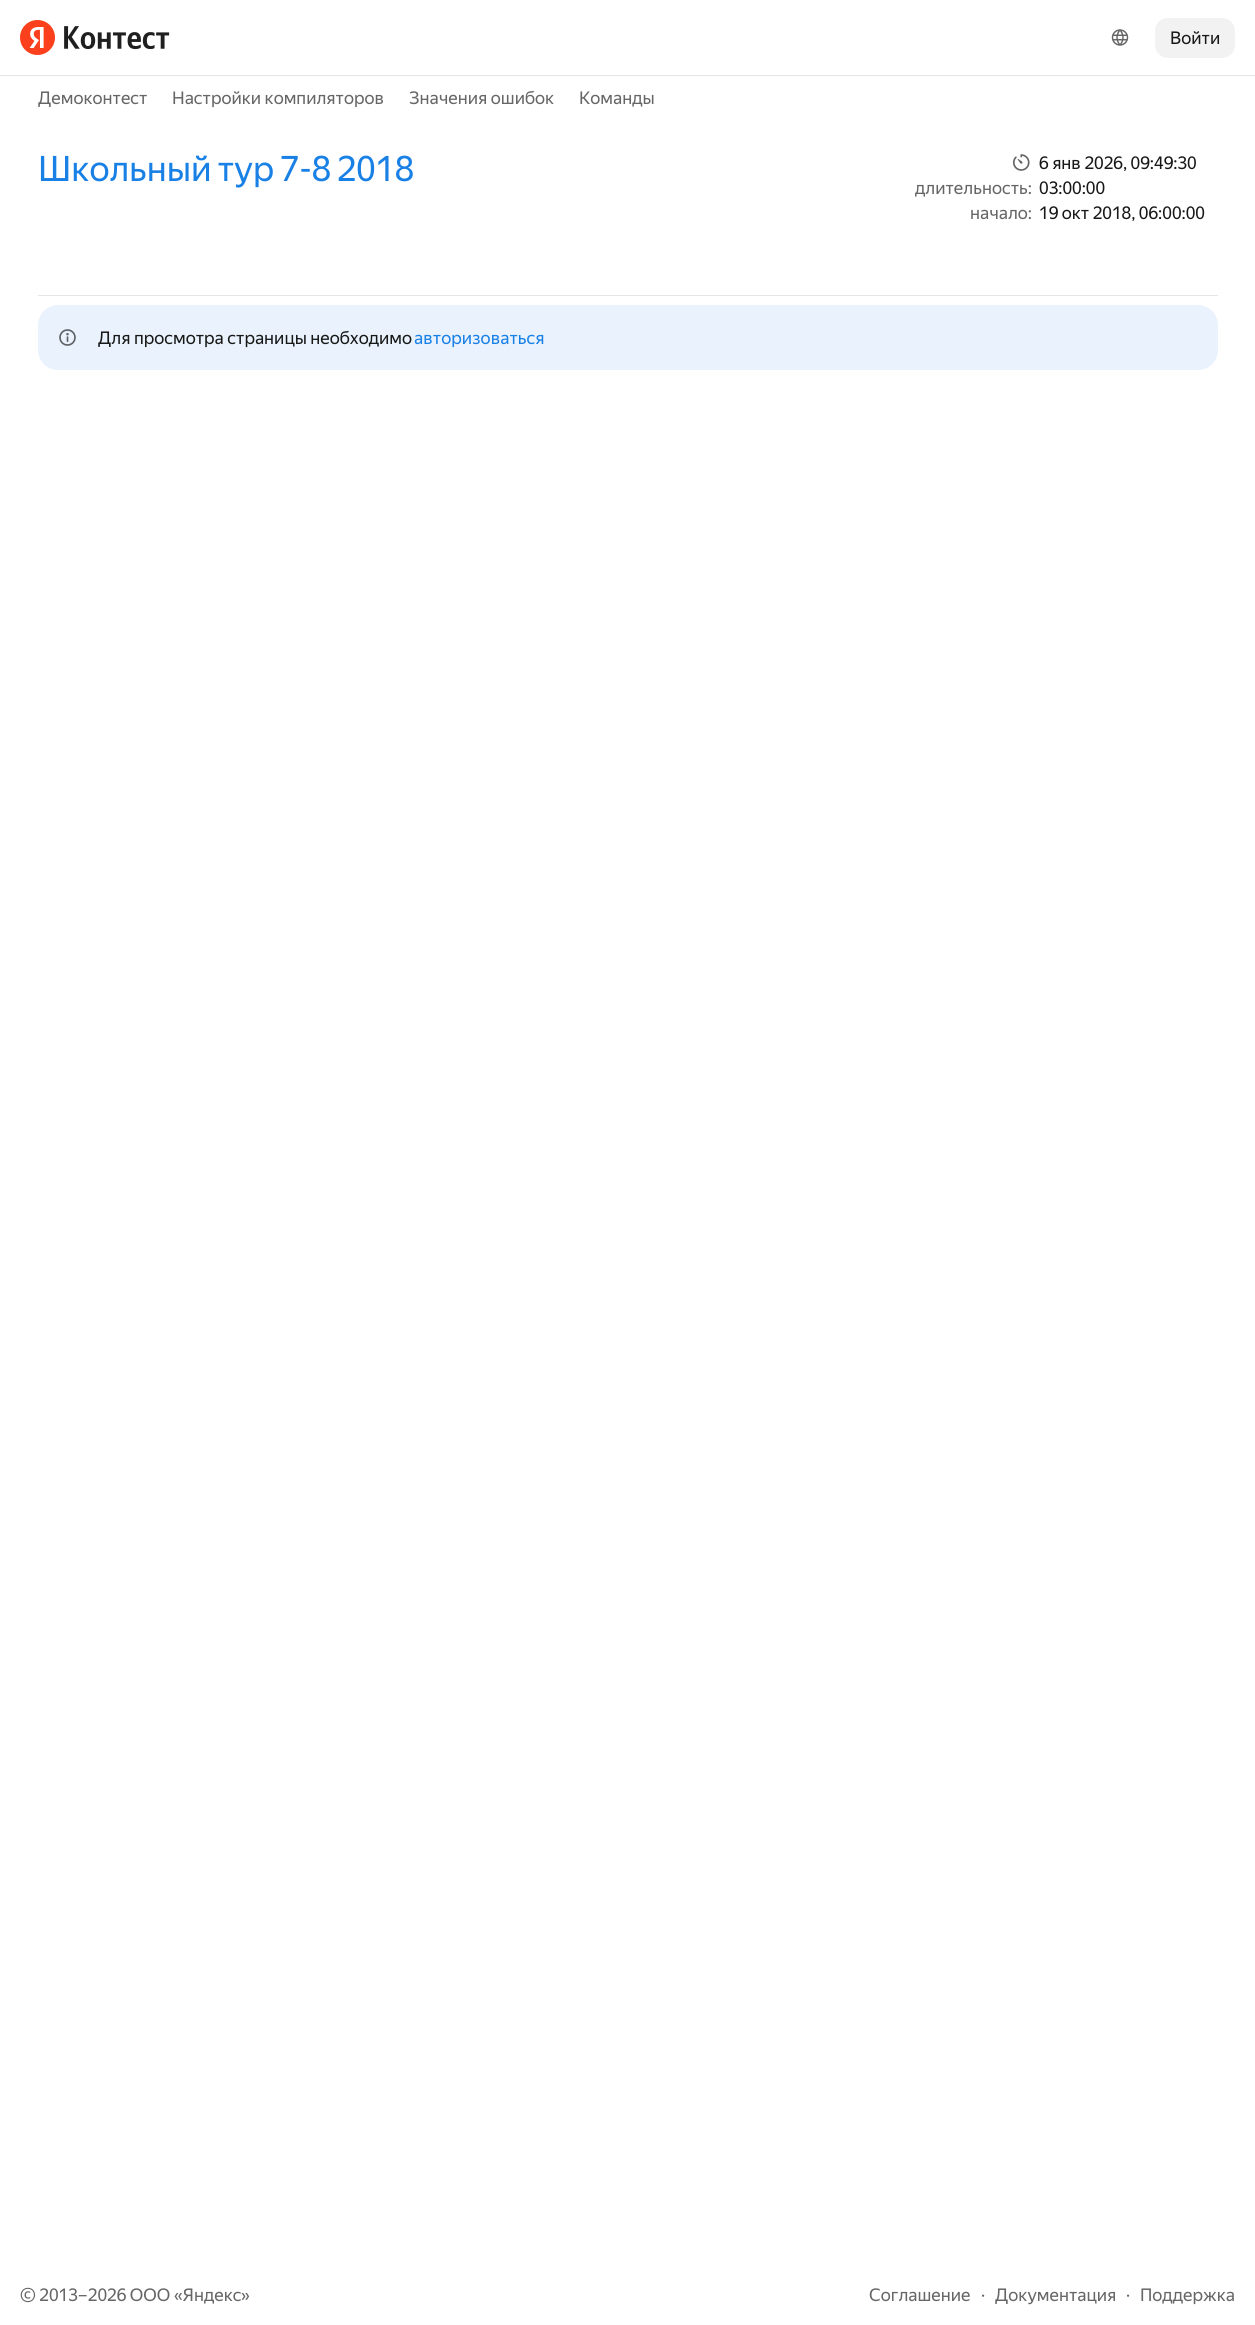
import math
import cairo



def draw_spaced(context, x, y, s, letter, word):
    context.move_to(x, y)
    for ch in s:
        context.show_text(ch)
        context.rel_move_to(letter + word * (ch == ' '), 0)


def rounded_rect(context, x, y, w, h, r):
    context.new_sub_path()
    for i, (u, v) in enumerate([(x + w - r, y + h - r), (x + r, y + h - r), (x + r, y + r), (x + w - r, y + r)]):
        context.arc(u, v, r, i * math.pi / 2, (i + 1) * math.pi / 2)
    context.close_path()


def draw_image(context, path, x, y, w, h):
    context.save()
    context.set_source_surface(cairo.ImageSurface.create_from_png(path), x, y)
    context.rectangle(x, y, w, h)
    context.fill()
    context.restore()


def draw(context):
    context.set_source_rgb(1, 1, 1)
    context.paint()
    draw_image(context, "images/1.png", 20, 20, 150, 35)
    draw_image(context, "images/2.png", 1111, 29, 18, 17)
    context.set_source_rgb(242 / 255, 242 / 255, 242 / 255)
    rounded_rect(context, 1155, 18, 80, 40, 13)
    context.fill()
    context.set_source_rgb(230 / 255, 230 / 255, 230 / 255)
    context.rectangle(0, 75, 1255, 1)
    context.fill()
    draw_image(context, "images/3.png", 1012, 154, 18, 17)
    context.rectangle(38, 295, 1180, 1)
    context.fill()
    context.set_source_rgb(234 / 255, 243 / 255, 253 / 255)
    rounded_rect(context, 38, 305, 1180, 65, 20)
    context.fill()
    draw_image(context, "images/4.png", 59, 329, 17, 17)
    context.select_font_face("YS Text")
    context.set_font_size(17.5)
    context.set_source_rgb(24 / 255, 24 / 255, 24 / 255)
    context.move_to(1170, 44)
    context.show_text("Войти")
    context.set_source_rgb(102 / 255, 102 / 255, 102 / 255)
    context.move_to(38, 104)
    context.show_text("Демоконтест")
    context.move_to(172, 104)
    context.show_text("Настройки компиляторов")
    context.move_to(409, 104)
    context.show_text("Значения ошибок")
    context.move_to(579, 104)
    context.show_text("Команды")
    context.set_font_size(35)
    context.set_source_rgb(25 / 255, 128 / 255, 230 / 255)
    draw_spaced(context, 38, 181, "Школьный тур 7-8 2018", 0, -1)
    context.set_font_size(17.5)
    context.set_source_rgb(24 / 255, 24 / 255, 24 / 255)
    context.move_to(1039, 169)
    context.show_text("6 янв 2026, 09:49:30")
    context.set_source_rgb(102 / 255, 102 / 255, 102 / 255)
    context.move_to(915, 194)
    context.show_text("длительность:")
    context.set_source_rgb(24 / 255, 24 / 255, 24 / 255)
    context.move_to(1039, 194)
    context.show_text("03:00:00")
    context.set_source_rgb(102 / 255, 102 / 255, 102 / 255)
    context.move_to(970, 219)
    context.show_text("начало:")
    context.set_source_rgb(24 / 255, 24 / 255, 24 / 255)
    context.move_to(1039, 219)
    context.show_text("19 окт 2018, 06:00:00")
    context.move_to(98, 344)
    context.show_text("Для просмотра страницы необходимо")
    context.set_source_rgb(25 / 255, 128 / 255, 230 / 255)
    context.move_to(414, 344)
    context.show_text("авторизоваться")
    context.set_source_rgb(102 / 255, 102 / 255, 102 / 255)
    context.move_to(20, 2301)
    context.show_text("© 2013–2026 ООО «Яндекс")
    context.move_to(241, 2301)
    context.show_text("»")
    context.move_to(869, 2301)
    context.show_text("Соглашение")
    context.move_to(981, 2301)
    context.show_text("·")
    context.move_to(995, 2301)
    context.show_text("Документация")
    context.move_to(1126, 2301)
    context.show_text("·")
    context.move_to(1140, 2301)
    context.show_text("Поддержка")


surface = cairo.ImageSurface(cairo.Format.RGB24, 1255, 2325)
context = cairo.Context(surface)
options = cairo.FontOptions()
options.set_hint_metrics(cairo.HintMetrics.OFF)
options.set_hint_style(cairo.HintStyle.NONE)
context.set_font_options(options)
context.set_miter_limit(4)
draw(context)
surface.write_to_png("out.png")
